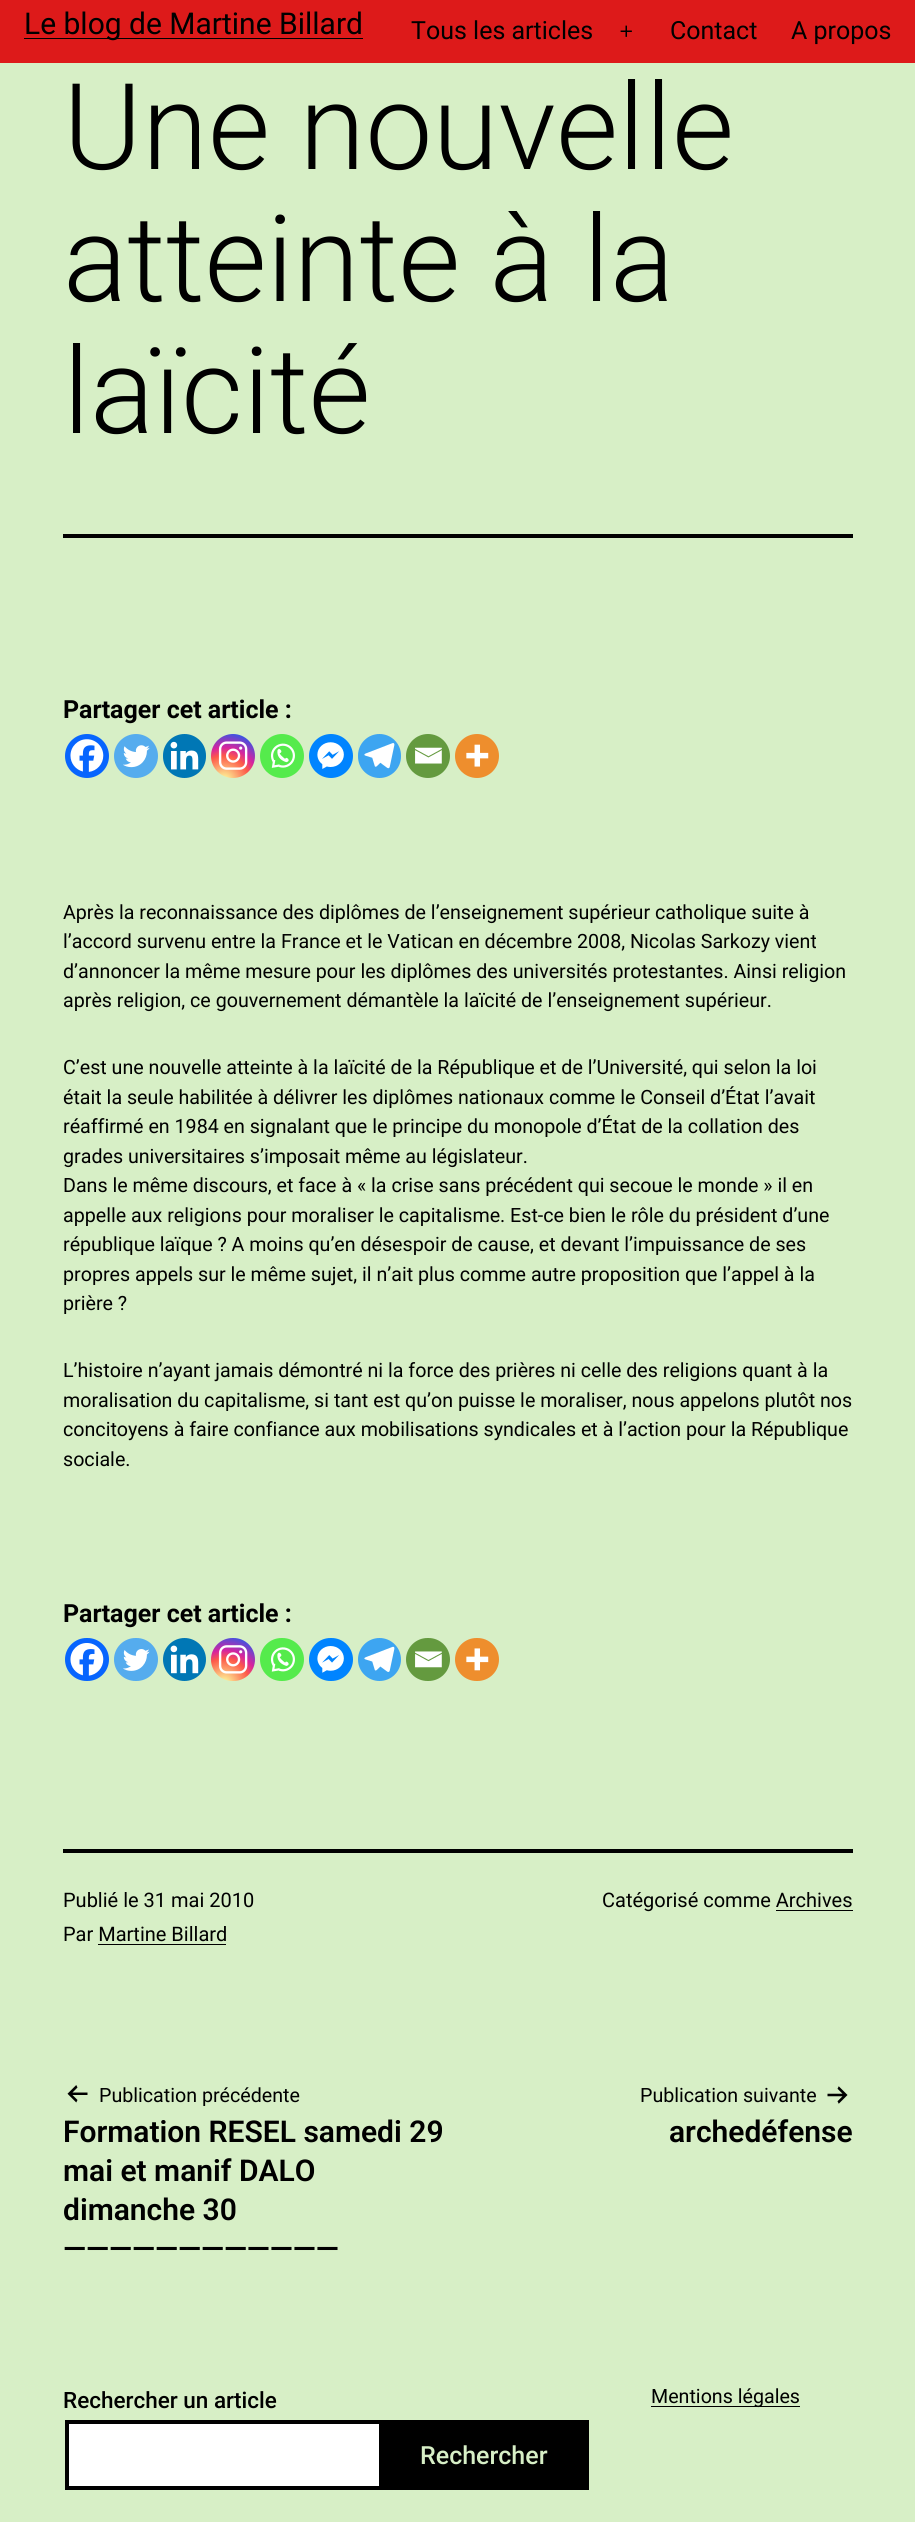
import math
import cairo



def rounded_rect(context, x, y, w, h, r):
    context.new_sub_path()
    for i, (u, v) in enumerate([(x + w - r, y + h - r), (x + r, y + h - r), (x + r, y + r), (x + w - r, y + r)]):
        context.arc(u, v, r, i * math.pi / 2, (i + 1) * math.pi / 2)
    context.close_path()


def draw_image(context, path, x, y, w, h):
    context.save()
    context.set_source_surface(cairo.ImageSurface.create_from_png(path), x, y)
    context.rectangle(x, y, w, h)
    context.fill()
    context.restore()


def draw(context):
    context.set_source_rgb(215 / 255, 239 / 255, 198 / 255)
    context.paint()
    context.set_source_rgb(221 / 255, 26 / 255, 26 / 255)
    context.rectangle(0, 0, 915, 63)
    context.fill()
    context.set_source_rgb(0, 0, 0)
    context.rectangle(24, 38, 339, 1)
    context.fill()
    draw_image(context, "images/1.png", 620, 25, 12, 12)
    context.rectangle(63, 534, 790, 4)
    context.fill()
    context.set_source_rgb(7 / 255, 101 / 255, 254 / 255)
    context.arc(87, 756, 22, 0, 2 * math.pi)
    context.fill()
    draw_image(context, "images/2.png", 70, 739, 34, 33)
    context.set_source_rgb(85 / 255, 172 / 255, 238 / 255)
    context.arc(136, 756, 22, 0, 2 * math.pi)
    context.fill()
    draw_image(context, "images/3.png", 123, 745, 27, 23)
    context.set_source_rgb(0, 119 / 255, 181 / 255)
    rounded_rect(context, 163, 734, 43, 44, 21.5)
    context.fill()
    draw_image(context, "images/4.png", 170, 741, 29, 29)
    gradient = cairo.RadialGradient(224, 781, 0, 224, 781, 56)
    gradient.add_color_stop_rgba(0, 253 / 255, 244 / 255, 151 / 255, 1)
    gradient.add_color_stop_rgba(0.05, 253 / 255, 244 / 255, 151 / 255, 1)
    gradient.add_color_stop_rgba(0.45, 253 / 255, 89 / 255, 73 / 255, 1)
    gradient.add_color_stop_rgba(0.6, 214 / 255, 36 / 255, 159 / 255, 1)
    gradient.add_color_stop_rgba(0.9, 40 / 255, 90 / 255, 235 / 255, 1)
    context.set_source(gradient)
    context.arc(233, 756, 22, 0, 2 * math.pi)
    context.fill()
    draw_image(context, "images/5.png", 218, 741, 30, 29)
    context.set_source_rgb(85 / 255, 235 / 255, 76 / 255)
    context.arc(282, 756, 22, 0, 2 * math.pi)
    context.fill()
    draw_image(context, "images/6.png", 270, 743, 25, 25)
    context.set_source_rgb(0, 132 / 255, 1)
    context.arc(331, 756, 22, 0, 2 * math.pi)
    context.fill()
    draw_image(context, "images/7.png", 317, 742, 27, 27)
    context.set_source_rgb(61 / 255, 165 / 255, 241 / 255)
    rounded_rect(context, 358, 734, 43, 44, 21.5)
    context.fill()
    draw_image(context, "images/8.png", 364, 743, 31, 26)
    context.set_source_rgb(100 / 255, 154 / 255, 63 / 255)
    context.arc(428, 756, 22, 0, 2 * math.pi)
    context.fill()
    draw_image(context, "images/9.png", 415, 747, 27, 17)
    context.set_source_rgb(238 / 255, 142 / 255, 45 / 255)
    context.arc(477, 756, 22, 0, 2 * math.pi)
    context.fill()
    draw_image(context, "images/10.png", 466, 744, 23, 23)
    context.set_source_rgb(7 / 255, 101 / 255, 254 / 255)
    rounded_rect(context, 65, 1638, 44, 43, 21.5)
    context.fill()
    draw_image(context, "images/11.png", 70, 1643, 34, 33)
    context.set_source_rgb(85 / 255, 172 / 255, 238 / 255)
    rounded_rect(context, 114, 1638, 44, 43, 21.5)
    context.fill()
    draw_image(context, "images/12.png", 123, 1649, 27, 22)
    context.set_source_rgb(0, 119 / 255, 181 / 255)
    context.arc(184.5, 1659.5, 21.5, 0, 2 * math.pi)
    context.fill()
    draw_image(context, "images/13.png", 170, 1645, 29, 29)
    gradient = cairo.RadialGradient(224, 1684, 0, 224, 1684, 56)
    gradient.add_color_stop_rgba(0, 253 / 255, 244 / 255, 151 / 255, 1)
    gradient.add_color_stop_rgba(0.05, 253 / 255, 244 / 255, 151 / 255, 1)
    gradient.add_color_stop_rgba(0.45, 253 / 255, 89 / 255, 73 / 255, 1)
    gradient.add_color_stop_rgba(0.6, 214 / 255, 36 / 255, 159 / 255, 1)
    gradient.add_color_stop_rgba(0.9, 40 / 255, 90 / 255, 235 / 255, 1)
    context.set_source(gradient)
    rounded_rect(context, 211, 1638, 44, 43, 21.5)
    context.fill()
    draw_image(context, "images/14.png", 218, 1645, 30, 29)
    context.set_source_rgb(85 / 255, 235 / 255, 76 / 255)
    rounded_rect(context, 260, 1638, 44, 43, 21.5)
    context.fill()
    draw_image(context, "images/15.png", 270, 1647, 25, 25)
    context.set_source_rgb(0, 132 / 255, 1)
    rounded_rect(context, 309, 1638, 44, 43, 21.5)
    context.fill()
    draw_image(context, "images/16.png", 317, 1646, 27, 27)
    context.set_source_rgb(61 / 255, 165 / 255, 241 / 255)
    context.arc(379.5, 1659.5, 21.5, 0, 2 * math.pi)
    context.fill()
    draw_image(context, "images/17.png", 364, 1646, 31, 26)
    context.set_source_rgb(100 / 255, 154 / 255, 63 / 255)
    rounded_rect(context, 406, 1638, 44, 43, 21.5)
    context.fill()
    draw_image(context, "images/18.png", 415, 1651, 27, 17)
    context.set_source_rgb(238 / 255, 142 / 255, 45 / 255)
    rounded_rect(context, 455, 1638, 44, 43, 21.5)
    context.fill()
    draw_image(context, "images/19.png", 466, 1648, 23, 23)
    context.set_source_rgb(0, 0, 0)
    context.rectangle(63, 1849, 790, 4)
    context.fill()
    context.rectangle(98, 1944, 128, 1)
    context.fill()
    context.rectangle(776, 1910, 77, 1)
    context.fill()
    draw_image(context, "images/20.png", 67, 2085, 21, 18)
    draw_image(context, "images/21.png", 827, 2086, 21, 18)
    context.set_source_rgb(1, 1, 1)
    context.rectangle(67, 2422, 314, 66)
    context.fill_preserve()
    context.set_source_rgb(0, 0, 0)
    context.set_line_width(4)
    context.stroke()
    context.rectangle(383, 2420, 206, 70)
    context.fill()
    context.rectangle(651, 2406, 149, 1)
    context.fill()
    context.select_font_face("Roboto")
    context.set_font_size(30)
    context.move_to(24, 34)
    context.show_text("Le blog de Martine Billard")
    context.set_font_size(25)
    context.move_to(411, 39)
    context.show_text("Tous les articles")
    context.move_to(670, 39)
    context.show_text("Contact")
    context.move_to(791, 39)
    context.show_text("A propos")
    context.select_font_face("Roboto Light")
    context.set_font_size(120)
    context.move_to(63, 169)
    context.show_text("Une nouvelle")
    context.move_to(63, 301)
    context.show_text("atteinte à la")
    context.move_to(63, 433)
    context.show_text("laïcité")
    context.select_font_face("Roboto", cairo.FontSlant.NORMAL, cairo.FontWeight.BOLD)
    context.set_font_size(25)
    context.move_to(63, 718)
    context.show_text("Partager cet article :")
    context.select_font_face("Roboto")
    context.set_font_size(19.65)
    context.move_to(63, 919)
    context.show_text("Après la reconnaissance des diplômes de l’enseignement supérieur catholique suite à")
    context.move_to(63, 948)
    context.show_text("l’accord survenu entre la France et le Vatican en décembre 2008, Nicolas Sarkozy vient")
    context.move_to(63, 978)
    context.show_text("d’annoncer la même mesure pour les diplômes des universités protestantes. Ainsi religion")
    context.move_to(63, 1007)
    context.show_text("après religion, ce gouvernement démantèle la laïcité de l’enseignement supérieur.")
    context.move_to(63, 1074)
    context.show_text("C’est une nouvelle atteinte à la laïcité de la République et de l’Université, qui selon la loi")
    context.move_to(63, 1104)
    context.show_text("était la seule habilitée à délivrer les diplômes nationaux comme le Conseil d’État l’avait")
    context.move_to(63, 1133)
    context.show_text("réaffirmé en 1984 en signalant que le principe du monopole d’État de la collation des")
    context.move_to(63, 1163)
    context.show_text("grades universitaires s’imposait même au législateur.")
    context.move_to(63, 1192)
    context.show_text("Dans le même discours, et face à « la crise sans précédent qui secoue le monde » il en")
    context.move_to(63, 1222)
    context.show_text("appelle aux religions pour moraliser le capitalisme. Est-ce bien le rôle du président d’une")
    context.move_to(63, 1251)
    context.show_text("république laïque ? A moins qu’en désespoir de cause, et devant l’impuissance de ses")
    context.move_to(63, 1281)
    context.show_text("propres appels sur le même sujet, il n’ait plus comme autre proposition que l’appel à la")
    context.move_to(63, 1310)
    context.show_text("prière ?")
    context.move_to(63, 1377)
    context.show_text("L’histoire n’ayant jamais démontré ni la force des prières ni celle des religions quant à la")
    context.move_to(63, 1407)
    context.show_text("moralisation du capitalisme, si tant est qu’on puisse le moraliser, nous appelons plutôt nos")
    context.move_to(63, 1436)
    context.show_text("concitoyens à faire confiance aux mobilisations syndicales et à l’action pour la République")
    context.move_to(63, 1466)
    context.show_text("sociale.")
    context.select_font_face("Roboto", cairo.FontSlant.NORMAL, cairo.FontWeight.BOLD)
    context.set_font_size(25)
    context.move_to(63, 1622)
    context.show_text("Partager cet article :")
    context.select_font_face("Roboto")
    context.set_font_size(20)
    context.move_to(63, 1907)
    context.show_text("Publié le 31 mai 2010")
    context.move_to(63, 1941)
    context.show_text("Par Martine Billard")
    context.move_to(602, 1907)
    context.show_text("Catégorisé comme Archives")
    context.set_font_size(19.65)
    context.move_to(99, 2102)
    context.show_text("Publication précédente")
    context.select_font_face("Roboto SemiBold")
    context.set_font_size(30)
    context.move_to(63, 2142)
    context.show_text("Formation RESEL samedi 29")
    context.move_to(63, 2181)
    context.show_text("mai et manif DALO")
    context.move_to(63, 2220)
    context.show_text("dimanche 30")
    context.move_to(63, 2259)
    context.show_text("————————————")
    context.select_font_face("Roboto")
    context.set_font_size(19.65)
    context.move_to(640, 2102)
    context.show_text("Publication suivante")
    context.select_font_face("Roboto SemiBold")
    context.set_font_size(30)
    context.move_to(669, 2142)
    context.show_text("archedéfense")
    context.select_font_face("Roboto Medium")
    context.set_font_size(22.5)
    context.move_to(63, 2408)
    context.show_text("Rechercher un article")
    context.set_font_size(25)
    context.set_source_rgb(215 / 255, 239 / 255, 198 / 255)
    context.move_to(420, 2464)
    context.show_text("Rechercher")
    context.select_font_face("Roboto")
    context.set_font_size(19.65)
    context.set_source_rgb(0, 0, 0)
    context.move_to(651, 2403)
    context.show_text("Mentions légales")


surface = cairo.ImageSurface(cairo.Format.RGB24, 915, 2522)
context = cairo.Context(surface)
options = cairo.FontOptions()
options.set_hint_metrics(cairo.HintMetrics.OFF)
options.set_hint_style(cairo.HintStyle.NONE)
context.set_font_options(options)
context.set_miter_limit(4)
draw(context)
surface.write_to_png("out.png")
